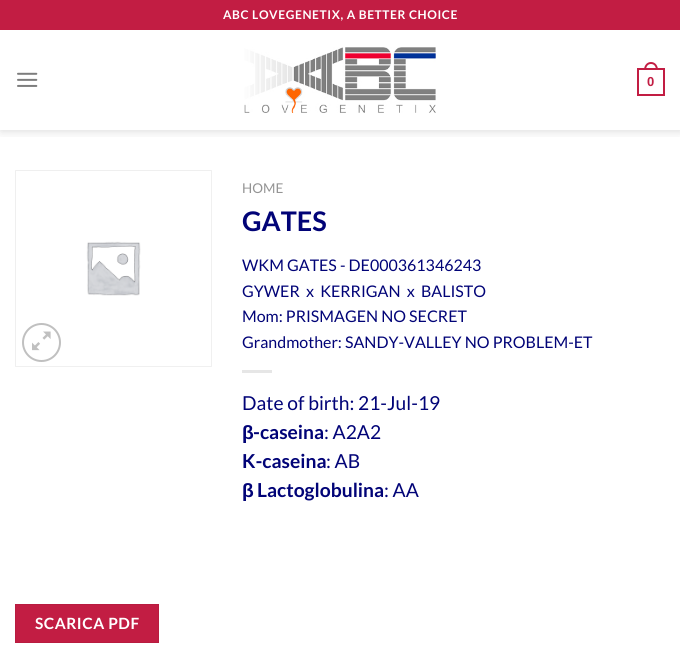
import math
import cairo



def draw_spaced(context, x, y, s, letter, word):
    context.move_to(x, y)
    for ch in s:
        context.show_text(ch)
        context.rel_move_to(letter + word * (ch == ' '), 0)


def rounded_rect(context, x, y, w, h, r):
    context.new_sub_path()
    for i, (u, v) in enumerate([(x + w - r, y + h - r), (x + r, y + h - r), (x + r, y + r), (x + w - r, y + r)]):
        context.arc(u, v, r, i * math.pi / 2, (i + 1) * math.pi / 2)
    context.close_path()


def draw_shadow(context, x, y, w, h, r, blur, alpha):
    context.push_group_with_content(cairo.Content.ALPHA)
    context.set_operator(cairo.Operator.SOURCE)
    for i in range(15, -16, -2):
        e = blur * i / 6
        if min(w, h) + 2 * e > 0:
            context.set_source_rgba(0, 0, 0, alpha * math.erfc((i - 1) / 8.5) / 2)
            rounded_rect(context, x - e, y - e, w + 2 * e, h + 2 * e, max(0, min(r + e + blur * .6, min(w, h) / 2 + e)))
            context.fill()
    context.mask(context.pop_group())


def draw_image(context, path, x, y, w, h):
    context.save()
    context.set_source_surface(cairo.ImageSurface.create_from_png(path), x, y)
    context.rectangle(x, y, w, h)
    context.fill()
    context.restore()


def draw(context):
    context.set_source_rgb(1, 1, 1)
    context.paint()
    context.save()
    context.rectangle(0, 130, 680, 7)
    context.clip()
    context.set_source_rgb(0, 0, 0)
    draw_shadow(context, 1, 1, 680, 130, 0, 5, 0.15)
    context.restore()
    context.set_source_rgb(194 / 255, 29 / 255, 67 / 255)
    context.rectangle(0, 0, 680, 30)
    context.fill()
    draw_image(context, "images/1.png", 17, 72, 21, 15)
    draw_image(context, "images/2.png", 244, 47, 192, 66)
    context.rectangle(638, 69, 26, 26)
    context.stroke()
    context.set_fill_rule(cairo.FillRule.EVEN_ODD)
    context.new_path()
    context.move_to(651, 62)
    context.curve_to(655.5, 62, 658, 66, 658, 70)
    context.line_to(644, 70)
    context.curve_to(644, 66, 646.5, 62, 651, 62)
    context.close_path()
    context.move_to(651, 64)
    context.curve_to(654.5, 64, 656, 67, 656, 70)
    context.line_to(646, 70)
    context.curve_to(646, 67, 647.5, 64, 651, 64)
    context.close_path()
    context.fill()
    draw_image(context, "images/3.png", 15, 170, 197, 197)
    context.arc(41.5, 342.5, 18.5, 0, 2 * math.pi)
    context.set_source_rgb(192 / 255, 192 / 255, 192 / 255)
    context.stroke()
    draw_image(context, "images/4.png", 32, 331, 19, 20)
    context.set_source_rgb(230 / 255, 230 / 255, 230 / 255)
    context.rectangle(242, 370, 30, 3)
    context.fill()
    context.set_source_rgb(194 / 255, 29 / 255, 67 / 255)
    context.rectangle(15.5, 604.5, 143, 38)
    context.fill_preserve()
    context.set_source_rgb(184 / 255, 28 / 255, 64 / 255)
    context.set_line_width(1)
    context.stroke()
    context.select_font_face("Lato", cairo.FontSlant.NORMAL, cairo.FontWeight.BOLD)
    context.set_font_size(12)
    context.set_source_rgb(1, 1, 1)
    draw_spaced(context, 223, 19, "ABC LOVEGENETIX, A BETTER CHOICE", 0.6, 0)
    context.select_font_face("Liberation Sans", cairo.FontSlant.NORMAL, cairo.FontWeight.BOLD)
    context.set_font_size(13)
    context.set_source_rgb(194 / 255, 29 / 255, 67 / 255)
    context.move_to(647, 86)
    context.show_text("0")
    context.select_font_face("Lato")
    context.set_font_size(13.5)
    context.set_source_rgb(148 / 255, 148 / 255, 148 / 255)
    context.move_to(242, 193)
    context.show_text("HOME")
    context.select_font_face("Lato", cairo.FontSlant.NORMAL, cairo.FontWeight.BOLD)
    context.set_font_size(27)
    context.set_source_rgb(1 / 255, 3 / 255, 119 / 255)
    context.move_to(242, 231)
    context.show_text("GATES")
    context.select_font_face("Lato")
    context.set_font_size(16)
    context.move_to(242, 271)
    context.show_text("WKM GATES - DE000361346243")
    context.move_to(242, 297)
    context.show_text("GYWER  x  KERRIGAN  x  BALISTO")
    context.move_to(242, 322)
    context.show_text("Mom: PRISMAGEN NO SECRET")
    context.move_to(242, 348)
    context.show_text("Grandmother: SANDY-VALLEY NO PROBLEM-ET")
    context.set_font_size(19.25)
    context.move_to(242, 410)
    context.show_text("Date of birth: 21-Jul-19")
    context.select_font_face("Liberation Sans", cairo.FontSlant.NORMAL, cairo.FontWeight.BOLD)
    context.move_to(242, 439)
    context.show_text("β")
    context.select_font_face("Lato", cairo.FontSlant.NORMAL, cairo.FontWeight.BOLD)
    context.move_to(253, 439)
    context.show_text("-caseina")
    context.select_font_face("Lato")
    context.move_to(324, 439)
    context.show_text(": A2A2")
    context.select_font_face("Lato", cairo.FontSlant.NORMAL, cairo.FontWeight.BOLD)
    context.move_to(242, 468)
    context.show_text("K-caseina")
    context.select_font_face("Lato")
    context.move_to(326, 468)
    context.show_text(": AB")
    context.select_font_face("Liberation Sans", cairo.FontSlant.NORMAL, cairo.FontWeight.BOLD)
    context.move_to(242, 497)
    context.show_text("β")
    context.select_font_face("Lato", cairo.FontSlant.NORMAL, cairo.FontWeight.BOLD)
    context.move_to(257, 497)
    context.show_text("Lactoglobulina")
    context.select_font_face("Lato")
    context.move_to(384, 497)
    context.show_text(": AA")
    context.select_font_face("Lato", cairo.FontSlant.NORMAL, cairo.FontWeight.BOLD)
    context.set_font_size(15.5)
    context.set_source_rgb(1, 1, 1)
    draw_spaced(context, 35, 629, "SCARICA PDF", 0.5, 0)


surface = cairo.ImageSurface(cairo.Format.RGB24, 680, 659)
context = cairo.Context(surface)
options = cairo.FontOptions()
options.set_hint_metrics(cairo.HintMetrics.OFF)
options.set_hint_style(cairo.HintStyle.NONE)
context.set_font_options(options)
context.set_miter_limit(4)
draw(context)
surface.write_to_png("out.png")
